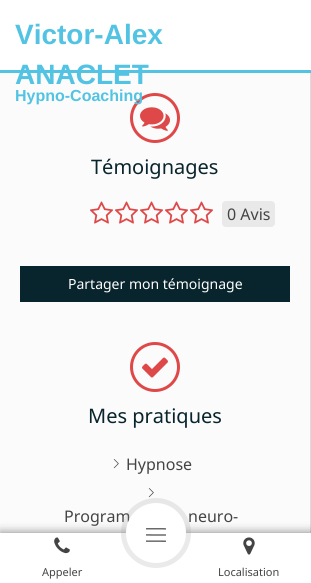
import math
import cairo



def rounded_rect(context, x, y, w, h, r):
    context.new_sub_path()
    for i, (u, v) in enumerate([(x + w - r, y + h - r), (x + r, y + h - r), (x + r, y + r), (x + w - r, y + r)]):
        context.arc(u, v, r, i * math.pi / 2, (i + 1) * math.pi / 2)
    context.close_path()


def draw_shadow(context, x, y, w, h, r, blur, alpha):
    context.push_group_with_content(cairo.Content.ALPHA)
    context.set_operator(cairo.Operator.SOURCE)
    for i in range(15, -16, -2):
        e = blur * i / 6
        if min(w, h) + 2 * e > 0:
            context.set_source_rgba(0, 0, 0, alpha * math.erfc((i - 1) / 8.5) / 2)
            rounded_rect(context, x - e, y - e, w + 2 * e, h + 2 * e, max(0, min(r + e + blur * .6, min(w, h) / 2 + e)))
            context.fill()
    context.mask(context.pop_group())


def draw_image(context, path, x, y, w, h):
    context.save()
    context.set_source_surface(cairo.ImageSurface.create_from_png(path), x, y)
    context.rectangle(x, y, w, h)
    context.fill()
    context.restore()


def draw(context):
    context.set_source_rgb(1, 1, 1)
    context.paint()
    context.set_source_rgb(83 / 255, 195 / 255, 227 / 255)
    context.rectangle(0, 70, 311, 3)
    context.fill()
    context.set_source_rgb(251 / 255, 251 / 255, 251 / 255)
    context.rectangle(0, 73, 310, 460)
    context.fill()
    context.set_source_rgb(220 / 255, 220 / 255, 220 / 255)
    context.rectangle(310, 73, 1, 460)
    context.fill()
    context.arc(155, 118, 23.5, 0, 2 * math.pi)
    context.set_source_rgb(222 / 255, 72 / 255, 72 / 255)
    context.set_line_width(3)
    context.stroke()
    draw_image(context, "images/1.png", 140, 107, 30, 24)
    draw_image(context, "images/2.png", 90, 201, 23, 23)
    draw_image(context, "images/2.png", 115, 201, 23, 23)
    draw_image(context, "images/2.png", 140, 201, 23, 23)
    draw_image(context, "images/2.png", 165, 201, 23, 23)
    draw_image(context, "images/2.png", 190, 201, 23, 23)
    context.set_source_rgb(233 / 255, 233 / 255, 233 / 255)
    rounded_rect(context, 222, 201, 53, 26, 4)
    context.fill()
    context.set_source_rgb(8 / 255, 36 / 255, 44 / 255)
    context.rectangle(20, 266, 270, 36)
    context.fill()
    context.arc(155, 367, 23.5, 0, 2 * math.pi)
    context.set_source_rgb(222 / 255, 72 / 255, 72 / 255)
    context.stroke()
    draw_image(context, "images/3.png", 142, 357, 26, 21)
    draw_image(context, "images/4.png", 113, 459, 6, 10)
    draw_image(context, "images/4.png", 148, 488, 6, 10)
    context.set_source_rgb(0, 0, 0)
    draw_shadow(context, 0, 533, 311, 50, 0, 5, 0.5)
    context.set_source_rgb(1, 1, 1)
    context.rectangle(0, 533, 311, 50)
    context.fill()
    draw_image(context, "images/6.png", 54, 537, 16, 17)
    draw_image(context, "images/7.png", 243, 537, 12, 18)
    context.select_font_face("Liberation Sans", cairo.FontSlant.NORMAL, cairo.FontWeight.BOLD)
    context.set_font_size(28)
    context.set_source_rgb(83 / 255, 195 / 255, 227 / 255)
    context.move_to(15, 44)
    context.show_text("Victor-Alex")
    context.move_to(15, 84)
    context.show_text("ANACLET")
    context.set_font_size(16)
    context.move_to(15, 101)
    context.show_text("Hypno-Coaching")
    context.select_font_face("Noto Sans")
    context.set_font_size(20)
    context.set_source_rgb(8 / 255, 36 / 255, 44 / 255)
    context.move_to(91, 174)
    context.show_text("Témoignages")
    context.set_font_size(16)
    context.set_source_rgb(68 / 255, 68 / 255, 68 / 255)
    context.move_to(227, 220)
    context.show_text("0 Avis")
    context.set_font_size(14)
    context.set_source_rgb(1, 1, 1)
    context.move_to(68, 289)
    context.show_text("Partager mon témoignage")
    context.set_font_size(20)
    context.set_source_rgb(8 / 255, 36 / 255, 44 / 255)
    context.move_to(88, 423)
    context.show_text("Mes pratiques")
    context.set_font_size(16)
    context.set_source_rgb(68 / 255, 68 / 255, 68 / 255)
    context.move_to(126, 470)
    context.show_text("Hypnose")
    context.move_to(64, 522)
    context.show_text("Program")
    context.move_to(188, 522)
    context.show_text("neuro-")
    context.set_source_rgba(150 / 255, 150 / 255, 150 / 255, 0.2)
    context.new_path()
    context.arc(156, 533, 35, 0, 2 * math.pi)
    context.fill()
    context.set_source_rgb(1, 1, 1)
    context.arc(156, 533, 30, 0, 2 * math.pi)
    context.fill()
    draw_image(context, "images/5.png", 146, 528, 20, 14)
    context.set_font_size(11)
    context.set_source_rgb(68 / 255, 68 / 255, 68 / 255)
    context.move_to(42, 576)
    context.show_text("Appeler")
    context.move_to(218, 576)
    context.show_text("Localisation")


surface = cairo.ImageSurface(cairo.Format.RGB24, 311, 583)
context = cairo.Context(surface)
options = cairo.FontOptions()
options.set_hint_metrics(cairo.HintMetrics.OFF)
options.set_hint_style(cairo.HintStyle.NONE)
context.set_font_options(options)
context.set_miter_limit(4)
draw(context)
surface.write_to_png("out.png")
